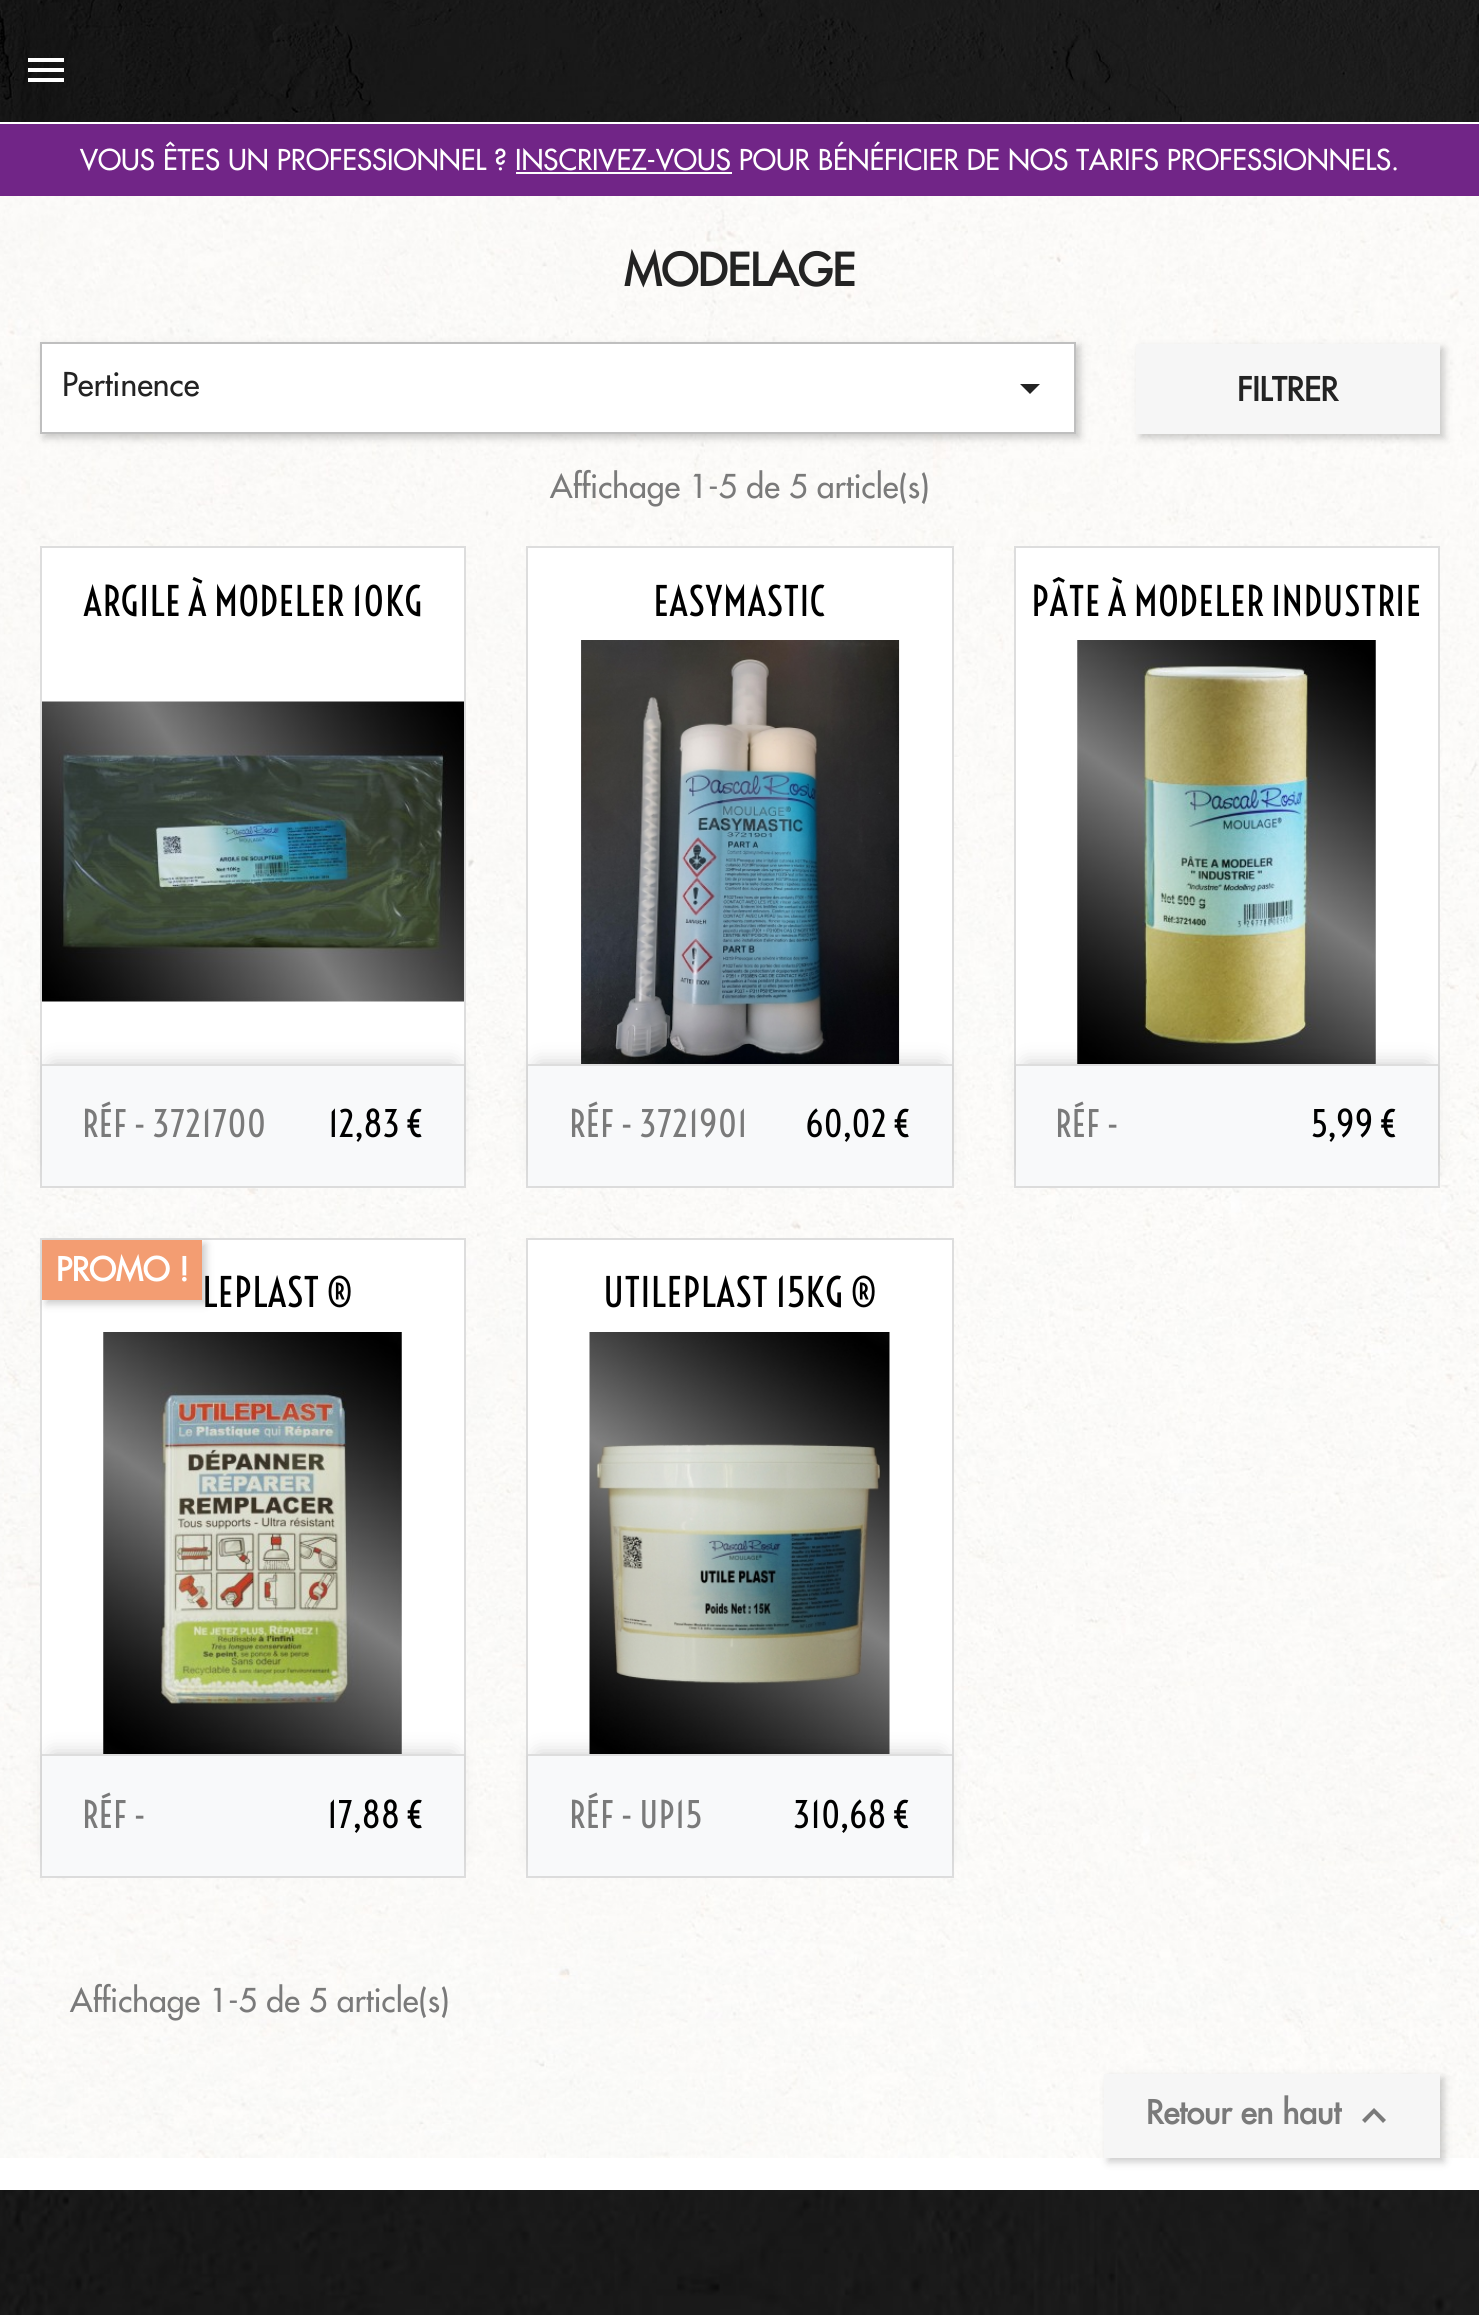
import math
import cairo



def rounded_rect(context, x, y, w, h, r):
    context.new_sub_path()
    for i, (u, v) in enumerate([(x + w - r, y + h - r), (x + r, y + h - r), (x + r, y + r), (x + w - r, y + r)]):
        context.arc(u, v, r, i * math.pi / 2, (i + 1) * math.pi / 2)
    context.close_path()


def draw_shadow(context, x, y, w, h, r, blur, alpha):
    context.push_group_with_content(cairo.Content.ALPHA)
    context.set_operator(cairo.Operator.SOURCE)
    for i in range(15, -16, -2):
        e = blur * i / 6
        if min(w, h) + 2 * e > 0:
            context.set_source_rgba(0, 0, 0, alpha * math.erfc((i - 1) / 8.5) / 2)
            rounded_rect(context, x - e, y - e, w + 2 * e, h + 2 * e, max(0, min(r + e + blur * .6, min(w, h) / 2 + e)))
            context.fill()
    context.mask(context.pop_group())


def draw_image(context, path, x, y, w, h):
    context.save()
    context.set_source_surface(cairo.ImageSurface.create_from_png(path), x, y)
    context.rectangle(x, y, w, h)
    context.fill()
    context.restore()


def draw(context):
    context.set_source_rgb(1, 1, 1)
    context.paint()
    draw_image(context, "images/1.png", 0, 0, 1479, 122)
    context.set_source_rgb(1, 1, 1)
    context.new_path()
    context.move_to(28, 58)
    context.line_to(64, 58)
    context.line_to(64, 62)
    context.line_to(28, 62)
    context.close_path()
    context.move_to(28, 72)
    context.line_to(28, 68)
    context.line_to(64, 68)
    context.line_to(64, 72)
    context.close_path()
    context.move_to(28, 82)
    context.line_to(28, 78)
    context.line_to(64, 78)
    context.line_to(64, 82)
    context.close_path()
    context.fill()
    context.set_source_rgb(113 / 255, 37 / 255, 135 / 255)
    context.rectangle(0, 124, 1479, 72)
    context.fill()
    context.set_source_rgb(1, 1, 1)
    context.rectangle(516, 172, 216, 2)
    context.fill()
    draw_image(context, "images/2.png", 0, 196, 1479, 1962)
    context.set_source_rgb(0, 0, 0)
    draw_shadow(context, 44, 346, 1036, 92, 0, 4, 0.2)
    context.set_source_rgb(1, 1, 1)
    context.rectangle(41, 343, 1034, 90)
    context.fill_preserve()
    context.set_source_rgb(191 / 255, 191 / 255, 191 / 255)
    context.stroke()
    context.set_source_rgb(35 / 255, 35 / 255, 35 / 255)
    context.new_path()
    context.move_to(1020, 384)
    context.line_to(1040, 384)
    context.line_to(1030, 394)
    context.close_path()
    context.fill()
    context.set_source_rgb(0, 0, 0)
    draw_shadow(context, 1140, 348, 304, 90, 0, 4, 0.2)
    context.set_source_rgb(246 / 255, 246 / 255, 246 / 255)
    context.rectangle(1136, 344, 304, 90)
    context.fill()
    context.set_source_rgb(1, 1, 1)
    context.rectangle(42, 548, 422, 516)
    context.fill()
    context.rectangle(41, 547, 424, 640)
    context.set_source_rgb(221 / 255, 221 / 255, 221 / 255)
    context.stroke()
    draw_image(context, "images/3.png", 42, 701, 422, 301)
    context.set_source_rgb(0, 0, 0)
    draw_shadow(context, 52, 1064, 402, 102, 0, 10, 0.2)
    context.set_source_rgb(248 / 255, 249 / 255, 250 / 255)
    context.rectangle(42, 1066, 422, 120)
    context.fill()
    context.set_source_rgb(221 / 255, 221 / 255, 221 / 255)
    context.rectangle(42, 1064, 422, 2)
    context.fill()
    context.set_source_rgb(1, 1, 1)
    context.rectangle(528, 548, 424, 516)
    context.fill()
    context.rectangle(527, 547, 426, 640)
    context.set_source_rgb(221 / 255, 221 / 255, 221 / 255)
    context.stroke()
    draw_image(context, "images/4.png", 581, 640, 319, 424)
    context.set_source_rgb(0, 0, 0)
    draw_shadow(context, 538, 1064, 404, 102, 0, 10, 0.2)
    context.set_source_rgb(248 / 255, 249 / 255, 250 / 255)
    context.rectangle(528, 1066, 424, 120)
    context.fill()
    context.set_source_rgb(221 / 255, 221 / 255, 221 / 255)
    context.rectangle(528, 1064, 424, 2)
    context.fill()
    context.set_source_rgb(1, 1, 1)
    context.rectangle(1016, 548, 422, 516)
    context.fill()
    context.rectangle(1015, 547, 424, 640)
    context.set_source_rgb(221 / 255, 221 / 255, 221 / 255)
    context.stroke()
    draw_image(context, "images/5.png", 1077, 640, 299, 424)
    context.set_source_rgb(0, 0, 0)
    draw_shadow(context, 1026, 1064, 402, 102, 0, 10, 0.2)
    context.set_source_rgb(248 / 255, 249 / 255, 250 / 255)
    context.rectangle(1016, 1066, 422, 120)
    context.fill()
    context.set_source_rgb(221 / 255, 221 / 255, 221 / 255)
    context.rectangle(1016, 1064, 422, 2)
    context.fill()
    context.set_source_rgb(1, 1, 1)
    context.rectangle(42, 1240, 422, 514)
    context.fill()
    context.rectangle(41, 1239, 424, 638)
    context.set_source_rgb(221 / 255, 221 / 255, 221 / 255)
    context.stroke()
    context.set_source_rgb(0, 0, 0)
    draw_shadow(context, 46, 1244, 160, 60, 0, 4, 0.2)
    context.set_source_rgb(243 / 255, 157 / 255, 114 / 255)
    context.rectangle(42, 1240, 160, 60)
    context.fill()
    draw_image(context, "images/6.png", 103, 1332, 299, 422)
    context.set_source_rgb(0, 0, 0)
    draw_shadow(context, 52, 1754, 402, 102, 0, 10, 0.2)
    context.set_source_rgb(248 / 255, 249 / 255, 250 / 255)
    context.rectangle(42, 1756, 422, 120)
    context.fill()
    context.set_source_rgb(221 / 255, 221 / 255, 221 / 255)
    context.rectangle(42, 1754, 422, 2)
    context.fill()
    context.set_source_rgb(1, 1, 1)
    context.rectangle(528, 1240, 424, 514)
    context.fill()
    context.rectangle(527, 1239, 426, 638)
    context.set_source_rgb(221 / 255, 221 / 255, 221 / 255)
    context.stroke()
    draw_image(context, "images/7.png", 589, 1332, 301, 422)
    context.set_source_rgb(0, 0, 0)
    draw_shadow(context, 538, 1754, 404, 102, 0, 10, 0.2)
    context.set_source_rgb(248 / 255, 249 / 255, 250 / 255)
    context.rectangle(528, 1756, 424, 120)
    context.fill()
    context.set_source_rgb(221 / 255, 221 / 255, 221 / 255)
    context.rectangle(528, 1754, 424, 2)
    context.fill()
    context.set_source_rgb(0, 0, 0)
    draw_shadow(context, 1108, 2078, 336, 84, 0, 4, 0.2)
    context.set_source_rgb(246 / 255, 246 / 255, 246 / 255)
    context.rectangle(1104, 2074, 336, 84)
    context.fill()
    context.set_source_rgb(122 / 255, 122 / 255, 122 / 255)
    context.new_path()
    context.move_to(1365, 2123)
    context.line_to(1362, 2120)
    context.line_to(1374, 2108)
    context.line_to(1386, 2120)
    context.line_to(1383, 2123)
    context.line_to(1374, 2113.5)
    context.close_path()
    context.fill()
    draw_image(context, "images/8.png", 0, 2190, 1479, 125)
    context.select_font_face("Futura")
    context.set_font_size(28)
    context.set_source_rgb(1, 1, 1)
    context.move_to(80, 170)
    context.show_text("VOUS ÊTES UN PROFESSIONNEL ? INSCRIVEZ-VOUS POUR BÉNÉFICIER DE NOS TARIFS PROFESSIONNELS.")
    context.select_font_face("Futura", cairo.FontSlant.NORMAL, cairo.FontWeight.BOLD)
    context.set_font_size(44)
    context.set_source_rgb(35 / 255, 35 / 255, 35 / 255)
    context.move_to(624, 286)
    context.show_text("MODELAGE")
    context.select_font_face("Futura")
    context.set_font_size(32)
    context.move_to(62, 396)
    context.show_text("Pertinence")
    context.select_font_face("Futura", cairo.FontSlant.NORMAL, cairo.FontWeight.BOLD)
    context.move_to(1237, 401)
    context.show_text("FILTRER")
    context.select_font_face("Futura")
    context.set_source_rgb(122 / 255, 122 / 255, 122 / 255)
    context.move_to(550, 498)
    context.show_text("Affichage 1-5 de 5 article(s)")
    context.select_font_face("Voltaire")
    context.set_font_size(40)
    context.set_source_rgb(0, 0, 0)
    context.move_to(83, 616)
    context.show_text("ARGILE À MODELER 10KG")
    context.set_font_size(36)
    context.set_source_rgb(122 / 255, 122 / 255, 122 / 255)
    context.move_to(82, 1137)
    context.show_text("RÉF - 3721700")
    context.set_source_rgb(0, 0, 0)
    context.move_to(328, 1137)
    context.show_text("12,83 €")
    context.set_font_size(40)
    context.move_to(653, 616)
    context.show_text("EASYMASTIC")
    context.set_font_size(36)
    context.set_source_rgb(122 / 255, 122 / 255, 122 / 255)
    context.move_to(569, 1137)
    context.show_text("RÉF - 3721901")
    context.set_source_rgb(0, 0, 0)
    context.move_to(805, 1137)
    context.show_text("60,02 €")
    context.set_font_size(40)
    context.move_to(1031, 616)
    context.show_text("PÂTE À MODELER INDUSTRIE")
    context.set_font_size(36)
    context.set_source_rgb(122 / 255, 122 / 255, 122 / 255)
    context.move_to(1055, 1137)
    context.show_text("RÉF -")
    context.set_source_rgb(0, 0, 0)
    context.move_to(1311, 1137)
    context.show_text("5,99 €")
    context.select_font_face("Futura", cairo.FontSlant.NORMAL, cairo.FontWeight.BOLD)
    context.set_font_size(32)
    context.set_source_rgb(1, 1, 1)
    context.move_to(56, 1281)
    context.show_text("PROMO !")
    context.select_font_face("Voltaire")
    context.set_font_size(40)
    context.set_source_rgb(0, 0, 0)
    context.move_to(202, 1307)
    context.show_text("LEPLAST ®")
    context.set_font_size(36)
    context.set_source_rgb(122 / 255, 122 / 255, 122 / 255)
    context.move_to(82, 1828)
    context.show_text("RÉF -")
    context.set_source_rgb(0, 0, 0)
    context.move_to(327, 1828)
    context.show_text("17,88 €")
    context.set_font_size(40)
    context.move_to(603, 1307)
    context.show_text("UTILEPLAST 15KG ®")
    context.set_font_size(36)
    context.set_source_rgb(122 / 255, 122 / 255, 122 / 255)
    context.move_to(569, 1828)
    context.show_text("RÉF - UP15")
    context.set_source_rgb(0, 0, 0)
    context.move_to(793, 1828)
    context.show_text("310,68 €")
    context.select_font_face("Futura")
    context.set_font_size(32)
    context.set_source_rgb(122 / 255, 122 / 255, 122 / 255)
    context.move_to(70, 2012)
    context.show_text("Affichage 1-5 de 5 article(s)")
    context.select_font_face("Futura", cairo.FontSlant.NORMAL, cairo.FontWeight.BOLD)
    context.move_to(1146, 2124)
    context.show_text("Retour en haut")


surface = cairo.ImageSurface(cairo.Format.RGB24, 1479, 2315)
context = cairo.Context(surface)
options = cairo.FontOptions()
options.set_hint_metrics(cairo.HintMetrics.OFF)
options.set_hint_style(cairo.HintStyle.NONE)
context.set_font_options(options)
context.set_miter_limit(4)
draw(context)
surface.write_to_png("out.png")
